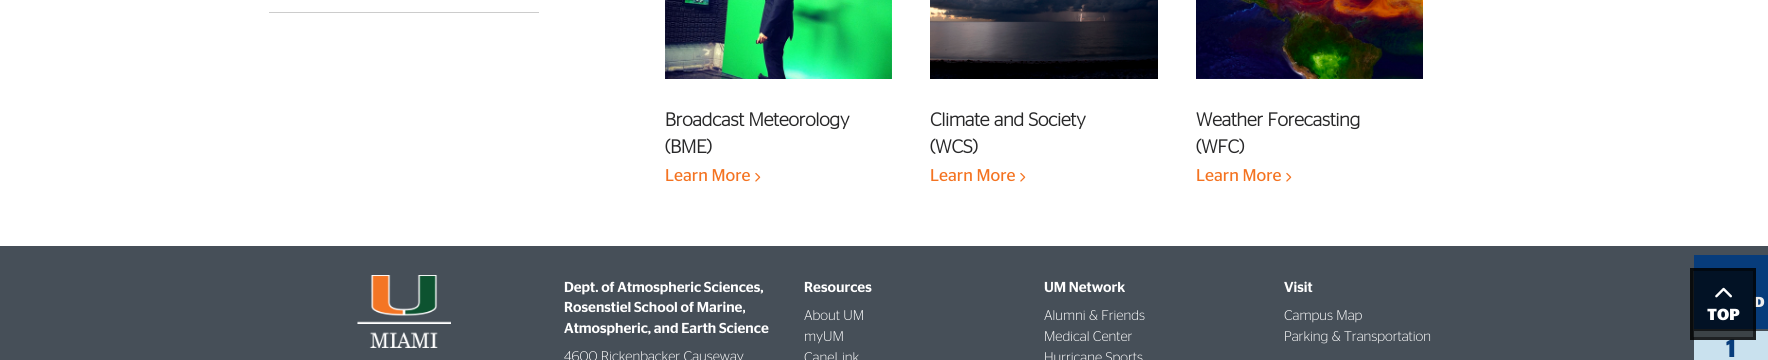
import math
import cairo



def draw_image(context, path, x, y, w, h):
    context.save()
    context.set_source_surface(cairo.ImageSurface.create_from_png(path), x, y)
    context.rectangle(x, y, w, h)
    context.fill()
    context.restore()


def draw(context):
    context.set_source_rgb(1, 1, 1)
    context.paint()
    context.set_source_rgb(204 / 255, 204 / 255, 204 / 255)
    context.rectangle(269, 12, 270, 1)
    context.fill()
    draw_image(context, "images/1.png", 665, 0, 227, 79)
    draw_image(context, "images/2.png", 755, 172, 6, 10)
    draw_image(context, "images/3.png", 930, 0, 228, 79)
    draw_image(context, "images/2.png", 1020, 172, 6, 10)
    draw_image(context, "images/4.png", 1196, 0, 227, 79)
    draw_image(context, "images/2.png", 1286, 172, 6, 10)
    context.set_source_rgb(70 / 255, 79 / 255, 88 / 255)
    context.rectangle(0, 246, 1768, 114)
    context.fill()
    context.set_source_rgb(7 / 255, 60 / 255, 123 / 255)
    context.rectangle(1694, 255, 74, 74)
    context.fill()
    context.set_source_rgb(201 / 255, 225 / 255, 238 / 255)
    context.rectangle(1694, 331, 74, 29)
    context.fill()
    draw_image(context, "images/5.png", 357, 275, 94, 73)
    context.select_font_face("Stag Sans", cairo.FontSlant.NORMAL, cairo.FontWeight.BOLD)
    context.set_font_size(18.75)
    context.set_source_rgb(40 / 255, 40 / 255, 41 / 255)
    context.move_to(665, 126)
    context.show_text("Broadcast Meteorology")
    context.move_to(665, 153)
    context.show_text("(BME)")
    context.select_font_face("Stag Sans")
    context.set_font_size(17)
    context.set_source_rgb(244 / 255, 115 / 255, 33 / 255)
    context.move_to(665, 181)
    context.show_text("Learn More")
    context.select_font_face("Stag Sans", cairo.FontSlant.NORMAL, cairo.FontWeight.BOLD)
    context.set_font_size(18.75)
    context.set_source_rgb(40 / 255, 40 / 255, 41 / 255)
    context.move_to(930, 126)
    context.show_text("Climate and Society")
    context.move_to(930, 153)
    context.show_text("(WCS)")
    context.select_font_face("Stag Sans")
    context.set_font_size(17)
    context.set_source_rgb(244 / 255, 115 / 255, 33 / 255)
    context.move_to(930, 181)
    context.show_text("Learn More")
    context.select_font_face("Stag Sans", cairo.FontSlant.NORMAL, cairo.FontWeight.BOLD)
    context.set_font_size(18.75)
    context.set_source_rgb(40 / 255, 40 / 255, 41 / 255)
    context.move_to(1196, 126)
    context.show_text("Weather Forecasting")
    context.move_to(1196, 153)
    context.show_text("(WFC)")
    context.select_font_face("Stag Sans")
    context.set_font_size(17)
    context.set_source_rgb(244 / 255, 115 / 255, 33 / 255)
    context.move_to(1196, 181)
    context.show_text("Learn More")
    context.select_font_face("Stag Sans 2", cairo.FontSlant.NORMAL, cairo.FontWeight.BOLD)
    context.set_font_size(14.4)
    context.set_source_rgb(237 / 255, 237 / 255, 238 / 255)
    context.move_to(1754, 307)
    context.show_text("D")
    context.select_font_face("Stag Sans SemiBold")
    context.set_font_size(25)
    context.set_source_rgb(7 / 255, 60 / 255, 123 / 255)
    context.move_to(1726, 357)
    context.show_text("1")
    context.select_font_face("Stag Sans Medium")
    context.set_font_size(14.4)
    context.set_source_rgb(1, 1, 1)
    context.move_to(564, 292)
    context.show_text("Dept. of Atmospheric Sciences,")
    context.move_to(564, 312)
    context.show_text("Rosenstiel School of Marine,")
    context.move_to(564, 333)
    context.show_text("Atmospheric, and Earth Science")
    context.select_font_face("Stag Sans Light")
    context.set_font_size(14)
    context.move_to(564, 361)
    context.show_text("4600 Rickenbacker Causeway")
    context.select_font_face("Stag Sans Medium")
    context.set_font_size(14.4)
    context.move_to(804, 292)
    context.show_text("Resources")
    context.select_font_face("Stag Sans Light")
    context.set_font_size(14)
    context.move_to(804, 320)
    context.show_text("About UM")
    context.move_to(804, 341)
    context.show_text("myUM")
    context.move_to(804, 362)
    context.show_text("CaneLink")
    context.select_font_face("Stag Sans Medium")
    context.set_font_size(14.4)
    context.move_to(1044, 292)
    context.show_text("UM Network")
    context.select_font_face("Stag Sans Light")
    context.set_font_size(14)
    context.move_to(1044, 320)
    context.show_text("Alumni & Friends")
    context.move_to(1044, 341)
    context.show_text("Medical Center")
    context.move_to(1044, 362)
    context.show_text("Hurricane Sports")
    context.select_font_face("Stag Sans Medium")
    context.set_font_size(14.4)
    context.move_to(1284, 292)
    context.show_text("Visit")
    context.select_font_face("Stag Sans Light")
    context.set_font_size(14)
    context.move_to(1284, 320)
    context.show_text("Campus Map")
    context.move_to(1284, 341)
    context.show_text("Parking & Transportation")
    context.set_source_rgba(0, 0, 0, 0.7)
    context.rectangle(1690, 268, 66, 72)
    context.fill()
    context.rectangle(1691.5, 269.5, 63, 69)
    context.set_source_rgba(0, 0, 0, 0.5)
    context.set_line_width(3)
    context.stroke()
    draw_image(context, "images/6.png", 1715, 287, 17, 11)
    context.select_font_face("Stag Sans 2", cairo.FontSlant.NORMAL, cairo.FontWeight.BOLD)
    context.set_font_size(16)
    context.set_source_rgb(1, 1, 1)
    context.move_to(1707, 320)
    context.show_text("TOP")


surface = cairo.ImageSurface(cairo.Format.RGB24, 1768, 360)
context = cairo.Context(surface)
options = cairo.FontOptions()
options.set_hint_metrics(cairo.HintMetrics.OFF)
options.set_hint_style(cairo.HintStyle.NONE)
context.set_font_options(options)
context.set_miter_limit(4)
draw(context)
surface.write_to_png("out.png")
